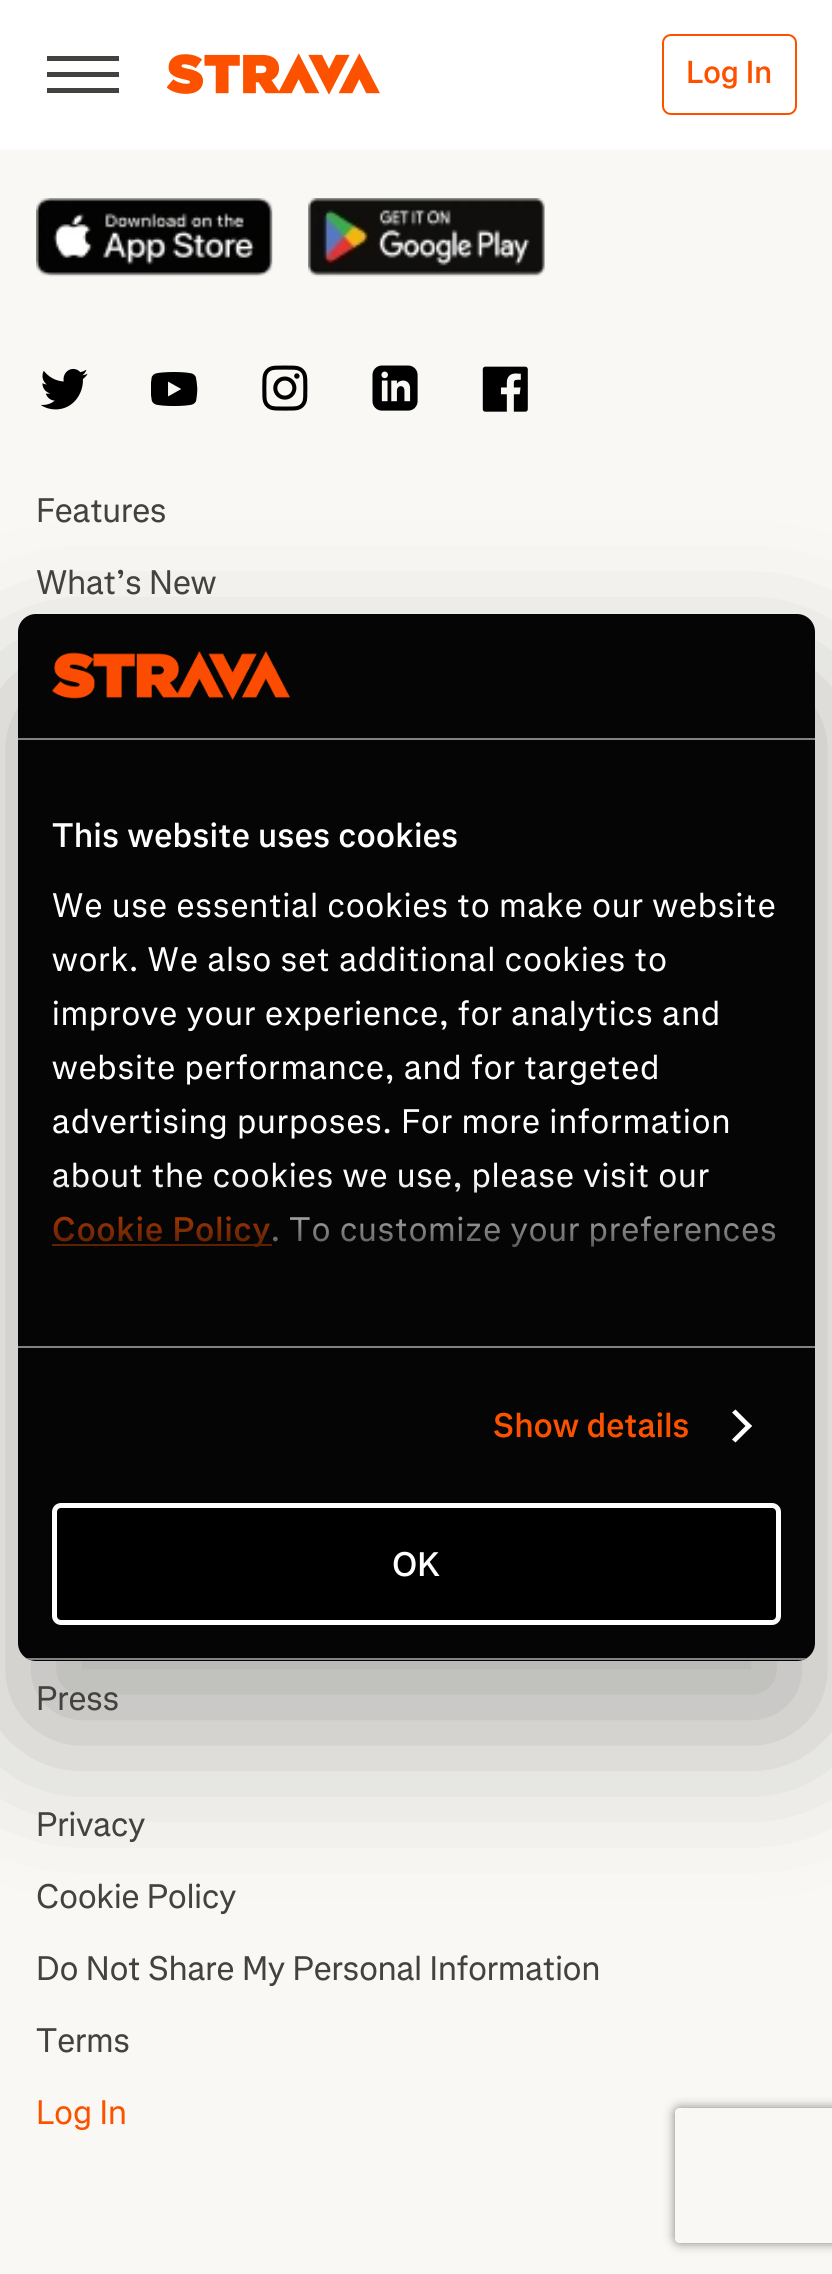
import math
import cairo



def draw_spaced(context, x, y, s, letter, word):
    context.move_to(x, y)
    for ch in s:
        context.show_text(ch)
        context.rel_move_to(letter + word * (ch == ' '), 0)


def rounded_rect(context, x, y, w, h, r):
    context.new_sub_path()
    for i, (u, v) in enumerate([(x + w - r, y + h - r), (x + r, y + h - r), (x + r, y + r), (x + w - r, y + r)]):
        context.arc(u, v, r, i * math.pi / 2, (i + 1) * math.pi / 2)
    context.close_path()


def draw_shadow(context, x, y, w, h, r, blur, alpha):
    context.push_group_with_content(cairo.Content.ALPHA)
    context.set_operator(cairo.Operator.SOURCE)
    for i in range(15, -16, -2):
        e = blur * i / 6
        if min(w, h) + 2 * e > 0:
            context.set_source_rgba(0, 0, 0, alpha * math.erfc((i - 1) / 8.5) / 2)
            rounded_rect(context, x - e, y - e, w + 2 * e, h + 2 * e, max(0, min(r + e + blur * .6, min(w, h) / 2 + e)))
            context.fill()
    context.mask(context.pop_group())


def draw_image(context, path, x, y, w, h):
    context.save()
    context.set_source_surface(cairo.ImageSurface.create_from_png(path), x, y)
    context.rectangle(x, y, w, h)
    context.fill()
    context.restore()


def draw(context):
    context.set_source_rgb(249 / 255, 248 / 255, 245 / 255)
    context.paint()
    context.set_source_rgb(1, 1, 1)
    context.rectangle(0, 0, 832, 149)
    context.fill()
    context.set_source_rgb(250 / 255, 250 / 255, 250 / 255)
    context.rectangle(0, 149, 832, 2)
    context.fill()
    context.set_source_rgb(67 / 255, 66 / 255, 63 / 255)
    context.rectangle(47, 56, 72, 5)
    context.fill()
    context.rectangle(47, 72, 72, 5)
    context.fill()
    context.rectangle(47, 88, 72, 5)
    context.fill()
    draw_image(context, "images/1.png", 167, 53, 213, 42)
    rounded_rect(context, 663, 35, 133, 79, 8)
    context.set_source_rgb(252 / 255, 82 / 255, 0)
    context.stroke()
    draw_image(context, "images/2.png", 36, 198, 237, 79)
    draw_image(context, "images/3.png", 308, 198, 237, 79)
    draw_image(context, "images/4.png", 41, 368, 47, 42)
    draw_image(context, "images/5.png", 151, 372, 47, 34)
    draw_image(context, "images/6.png", 262, 365, 46, 46)
    draw_image(context, "images/7.png", 372, 365, 46, 46)
    draw_image(context, "images/8.png", 482, 366, 46, 46)
    context.save()
    context.set_fill_rule(cairo.FillRule.EVEN_ODD)
    context.new_path()
    context.move_to(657, 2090)
    context.line_to(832, 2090)
    context.line_to(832, 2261)
    context.line_to(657, 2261)
    context.close_path()
    context.move_to(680, 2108)
    context.line_to(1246, 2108)
    context.curve_to(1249, 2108, 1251, 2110, 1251, 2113)
    context.line_to(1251, 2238)
    context.curve_to(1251, 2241, 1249, 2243, 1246, 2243)
    context.line_to(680, 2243)
    context.curve_to(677, 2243, 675, 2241, 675, 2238)
    context.line_to(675, 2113)
    context.curve_to(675, 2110, 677, 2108, 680, 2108)
    context.close_path()
    context.clip()
    context.set_source_rgb(128 / 255, 128 / 255, 128 / 255)
    draw_shadow(context, 675, 2108, 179, 135, 5, 5.5, 1)
    context.restore()
    context.set_source_rgb(0, 0, 0)
    draw_shadow(context, 18, 686, 797, 1047, 18, 76.5, 0.3)
    context.set_source_rgb(5 / 255, 5 / 255, 5 / 255)
    rounded_rect(context, 18, 614, 797, 1047, 18)
    context.fill()
    context.set_source_rgb(130 / 255, 130 / 255, 130 / 255)
    context.rectangle(18, 738, 797, 2)
    context.fill()
    draw_image(context, "images/9.png", 51, 650, 239, 51)
    context.rectangle(18, 1346, 797, 2)
    context.fill()
    context.set_source_rgb(252 / 255, 82 / 255, 0)
    context.rectangle(52, 1244, 220, 2)
    context.fill()
    context.set_source_rgb(1, 1, 1)
    context.new_path()
    context.move_to(735.5, 1409.5)
    context.line_to(752, 1426)
    context.line_to(748.5, 1429)
    context.line_to(732, 1412.5)
    context.close_path()
    context.fill()
    context.new_path()
    context.move_to(748.5, 1423)
    context.line_to(752, 1426)
    context.line_to(735.5, 1442.5)
    context.line_to(732, 1439.5)
    context.close_path()
    context.fill()
    context.save()
    rounded_rect(context, 18, 614, 797, 1047, 18)
    context.clip()
    context.set_source_rgb(130 / 255, 130 / 255, 130 / 255)
    context.rectangle(18, 1658, 797, 2)
    context.fill()
    context.restore()
    context.set_source_rgb(0, 0, 0)
    rounded_rect(context, 54.5, 1505.5, 724, 117, 6.5)
    context.fill_preserve()
    context.set_source_rgb(1, 1, 1)
    context.set_line_width(5)
    context.stroke()
    context.select_font_face("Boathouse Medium")
    context.set_font_size(31.5)
    context.set_source_rgb(252 / 255, 82 / 255, 0)
    context.move_to(686, 83)
    context.show_text("Log In")
    context.select_font_face("Boathouse")
    context.set_font_size(33.75)
    context.set_source_rgb(67 / 255, 66 / 255, 63 / 255)
    context.move_to(36, 522)
    context.show_text("Features")
    context.move_to(36, 594)
    context.show_text("What’s New")
    context.move_to(36, 1710)
    context.show_text("Press")
    context.move_to(36, 1836)
    context.show_text("Privacy")
    context.move_to(36, 1908)
    context.show_text("Cookie Policy")
    context.move_to(36, 1980)
    context.show_text("Do Not Share My Personal Information")
    context.move_to(36, 2052)
    context.show_text("Terms")
    context.set_source_rgb(252 / 255, 82 / 255, 0)
    context.move_to(36, 2124)
    context.show_text("Log In")
    context.select_font_face("Boathouse Medium")
    context.set_source_rgb(1, 1, 1)
    draw_spaced(context, 52, 847, "This website uses cookies", 0.55, 0)
    context.select_font_face("Boathouse")
    draw_spaced(context, 52, 917, "We use essential cookies to make our website", 1.1, 0)
    draw_spaced(context, 52, 971, "work. We also set additional cookies to", 1.1, 0)
    draw_spaced(context, 52, 1025, "improve your experience, for analytics and", 1.1, 0)
    draw_spaced(context, 52, 1079, "website performance, and for targeted", 1.1, 0)
    draw_spaced(context, 52, 1133, "advertising purposes. For more information", 1.1, 0)
    draw_spaced(context, 52, 1187, "about the cookies we use, please visit our", 1.1, 0)
    context.select_font_face("Boathouse Medium")
    context.set_source_rgb(252 / 255, 82 / 255, 0)
    draw_spaced(context, 52, 1241, "Cookie Policy", 1.1, 0)
    context.select_font_face("Boathouse")
    context.set_source_rgb(1, 1, 1)
    draw_spaced(context, 271, 1241, ". To customize your preferences", 1.1, 0)
    gradient = cairo.LinearGradient(402, 1346, 402, 1177)
    gradient.add_color_stop_rgba(0, 5 / 255, 5 / 255, 5 / 255, 1)
    gradient.add_color_stop_rgba(0.5, 5 / 255, 5 / 255, 5 / 255, 0.8)
    gradient.add_color_stop_rgba(1, 5 / 255, 5 / 255, 5 / 255, 0)
    context.set_source(gradient)
    context.rectangle(52, 1179, 725, 69)
    context.fill()
    context.select_font_face("Boathouse Medium")
    context.set_source_rgb(252 / 255, 82 / 255, 0)
    draw_spaced(context, 493, 1437, "Show details", 0.25, 0)
    context.set_source_rgb(1, 1, 1)
    context.move_to(392, 1576)
    context.show_text("OK")


surface = cairo.ImageSurface(cairo.Format.RGB24, 832, 2274)
context = cairo.Context(surface)
options = cairo.FontOptions()
options.set_hint_metrics(cairo.HintMetrics.OFF)
options.set_hint_style(cairo.HintStyle.NONE)
context.set_font_options(options)
context.set_miter_limit(4)
draw(context)
surface.write_to_png("out.png")
